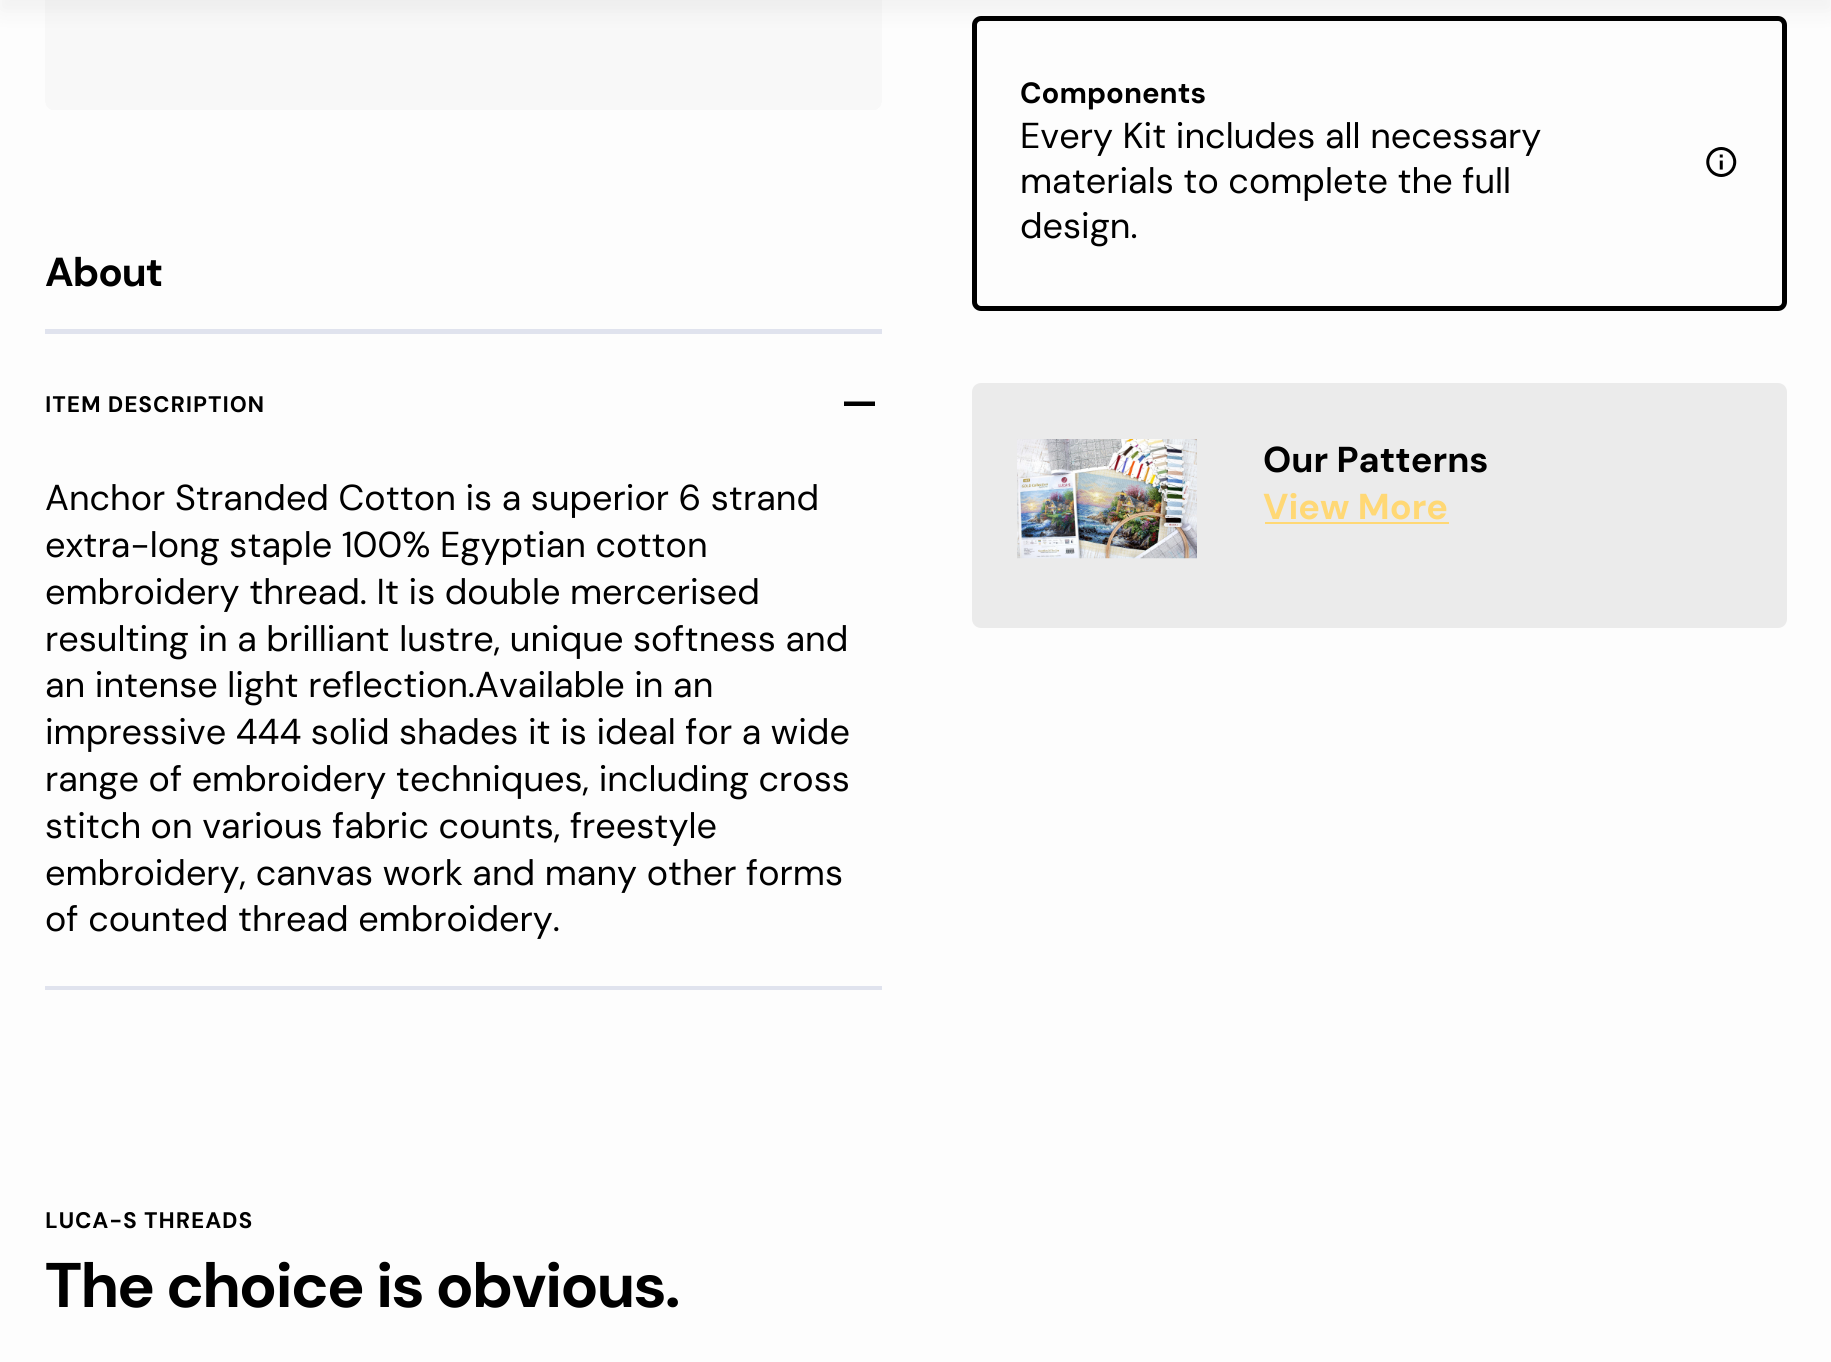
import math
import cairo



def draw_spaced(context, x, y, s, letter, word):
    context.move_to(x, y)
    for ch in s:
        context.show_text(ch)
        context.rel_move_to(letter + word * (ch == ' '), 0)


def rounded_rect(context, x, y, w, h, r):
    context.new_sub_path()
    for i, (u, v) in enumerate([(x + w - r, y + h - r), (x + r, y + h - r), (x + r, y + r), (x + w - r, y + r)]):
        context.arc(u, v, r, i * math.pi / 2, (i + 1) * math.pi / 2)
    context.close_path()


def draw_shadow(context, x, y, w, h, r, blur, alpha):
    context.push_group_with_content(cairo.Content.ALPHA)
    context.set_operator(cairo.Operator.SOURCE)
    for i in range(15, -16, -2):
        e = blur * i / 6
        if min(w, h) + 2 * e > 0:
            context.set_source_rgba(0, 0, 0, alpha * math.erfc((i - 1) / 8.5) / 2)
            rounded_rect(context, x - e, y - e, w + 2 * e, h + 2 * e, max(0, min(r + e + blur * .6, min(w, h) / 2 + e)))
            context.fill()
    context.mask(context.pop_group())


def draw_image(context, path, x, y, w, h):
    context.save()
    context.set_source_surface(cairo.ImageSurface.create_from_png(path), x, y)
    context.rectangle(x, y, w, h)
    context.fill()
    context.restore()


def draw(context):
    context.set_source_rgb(253 / 255, 253 / 255, 253 / 255)
    context.paint()
    draw_image(context, "images/1.png", 45, 0, 837, 110)
    rounded_rect(context, 974.5, 18.5, 810, 290, 6.5)
    context.set_source_rgb(0, 0, 0)
    context.set_line_width(5)
    context.stroke()
    context.set_source_rgb(1 / 255, 1 / 255, 1 / 255)
    draw_shadow(context, 0, -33, 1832, 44, 0, 11, 0.05)
    context.set_source_rgb(224 / 255, 227 / 255, 238 / 255)
    context.rectangle(45, 329, 837, 5)
    context.fill()
    context.rectangle(45, 986, 837, 4)
    context.fill()
    context.set_source_rgb(0, 0, 0)
    context.new_path()
    context.move_to(857, 401.5)
    context.line_to(875, 401.5)
    context.line_to(875, 406)
    context.line_to(844, 406)
    context.line_to(844, 401.5)
    context.close_path()
    context.fill()
    draw_image(context, "images/2.png", 1706, 147, 31, 30)
    context.set_source_rgb(235 / 255, 235 / 255, 235 / 255)
    rounded_rect(context, 972, 383, 815, 245, 9)
    context.fill()
    draw_image(context, "images/3.png", 1017, 439, 180, 120)
    context.set_source_rgb(1, 216 / 255, 117 / 255)
    context.rectangle(1265, 522, 184, 2)
    context.fill()
    context.select_font_face("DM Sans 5", cairo.FontSlant.NORMAL, cairo.FontWeight.BOLD)
    context.set_font_size(40.5)
    context.set_source_rgb(0, 0, 0)
    draw_spaced(context, 45, 286, "About", -1, 0)
    context.select_font_face("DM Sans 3", cairo.FontSlant.NORMAL, cairo.FontWeight.BOLD)
    context.set_font_size(22.5)
    draw_spaced(context, 45, 412, "ITEM DESCRIPTION", 0.9, 0)
    context.select_font_face("DM Sans")
    context.set_font_size(36)
    context.move_to(45, 510)
    context.show_text("Anchor Stranded Cotton is a superior 6 strand")
    context.move_to(45, 557)
    context.show_text("extra-long staple 100% Egyptian cotton")
    context.move_to(45, 604)
    context.show_text("embroidery thread. It is double mercerised")
    context.move_to(45, 651)
    context.show_text("resulting in a brilliant lustre, unique softness and")
    context.move_to(45, 697)
    context.show_text("an intense light reflection.Available in an")
    context.move_to(45, 744)
    context.show_text("impressive 444 solid shades it is ideal for a wide")
    context.move_to(45, 791)
    context.show_text("range of embroidery techniques, including cross")
    context.move_to(45, 838)
    context.show_text("stitch on various fabric counts, freestyle")
    context.move_to(45, 885)
    context.show_text("embroidery, canvas work and many other forms")
    context.move_to(45, 931)
    context.show_text("of counted thread embroidery.")
    context.select_font_face("DM Sans", cairo.FontSlant.NORMAL, cairo.FontWeight.BOLD)
    context.set_font_size(29.25)
    context.move_to(1020, 103)
    context.show_text("Components")
    context.select_font_face("DM Sans")
    context.set_font_size(36)
    context.move_to(1020, 148)
    context.show_text("Every Kit includes all necessary")
    context.move_to(1020, 193)
    context.show_text("materials to complete the full")
    context.move_to(1020, 238)
    context.show_text("design.")
    context.select_font_face("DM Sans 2", cairo.FontSlant.NORMAL, cairo.FontWeight.BOLD)
    context.move_to(1263, 472)
    context.show_text("Our Patterns")
    context.set_source_rgb(1, 216 / 255, 117 / 255)
    context.move_to(1263, 519)
    context.show_text("View More")
    context.select_font_face("DM Sans 3", cairo.FontSlant.NORMAL, cairo.FontWeight.BOLD)
    context.set_font_size(22.5)
    context.set_source_rgb(0, 0, 0)
    draw_spaced(context, 45, 1228, "LUCA-S THREADS", 0.9, 0)
    context.select_font_face("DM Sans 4", cairo.FontSlant.NORMAL, cairo.FontWeight.BOLD)
    context.set_font_size(63)
    draw_spaced(context, 45, 1307, "The choice is obvious.", -1.25, 0)


surface = cairo.ImageSurface(cairo.Format.RGB24, 1831, 1362)
context = cairo.Context(surface)
options = cairo.FontOptions()
options.set_hint_metrics(cairo.HintMetrics.OFF)
options.set_hint_style(cairo.HintStyle.NONE)
context.set_font_options(options)
context.set_miter_limit(4)
draw(context)
surface.write_to_png("out.png")
